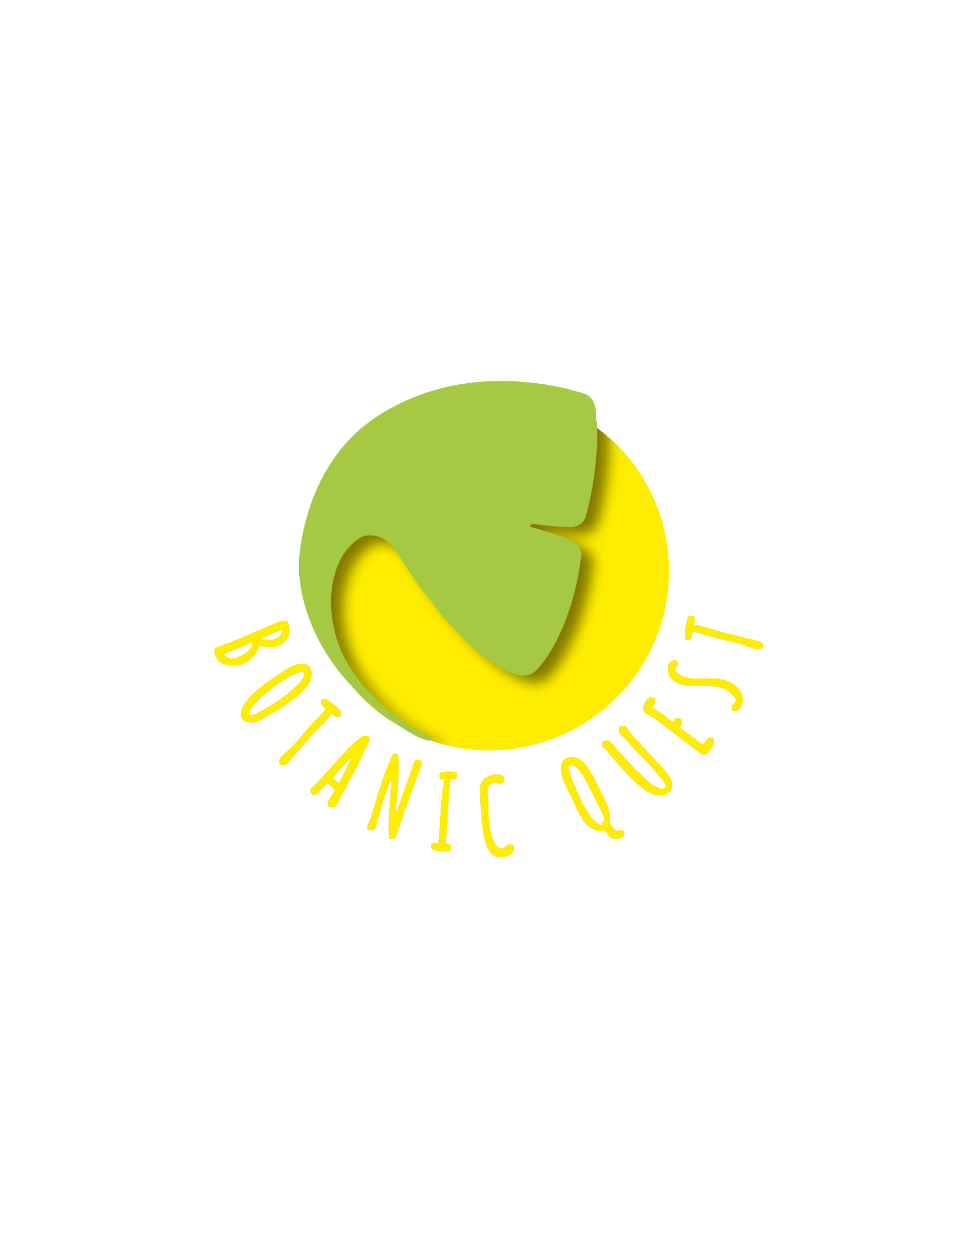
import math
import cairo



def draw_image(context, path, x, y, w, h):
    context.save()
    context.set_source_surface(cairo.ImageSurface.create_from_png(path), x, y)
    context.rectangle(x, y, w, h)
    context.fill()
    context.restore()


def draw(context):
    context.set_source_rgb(1, 1, 1)
    context.paint()
    draw_image(context, "images/1.png", 214, 380, 549, 478)


surface = cairo.ImageSurface(cairo.Format.RGB24, 977, 1240)
context = cairo.Context(surface)
options = cairo.FontOptions()
options.set_hint_metrics(cairo.HintMetrics.OFF)
options.set_hint_style(cairo.HintStyle.NONE)
context.set_font_options(options)
context.set_miter_limit(4)
draw(context)
surface.write_to_png("out.png")
